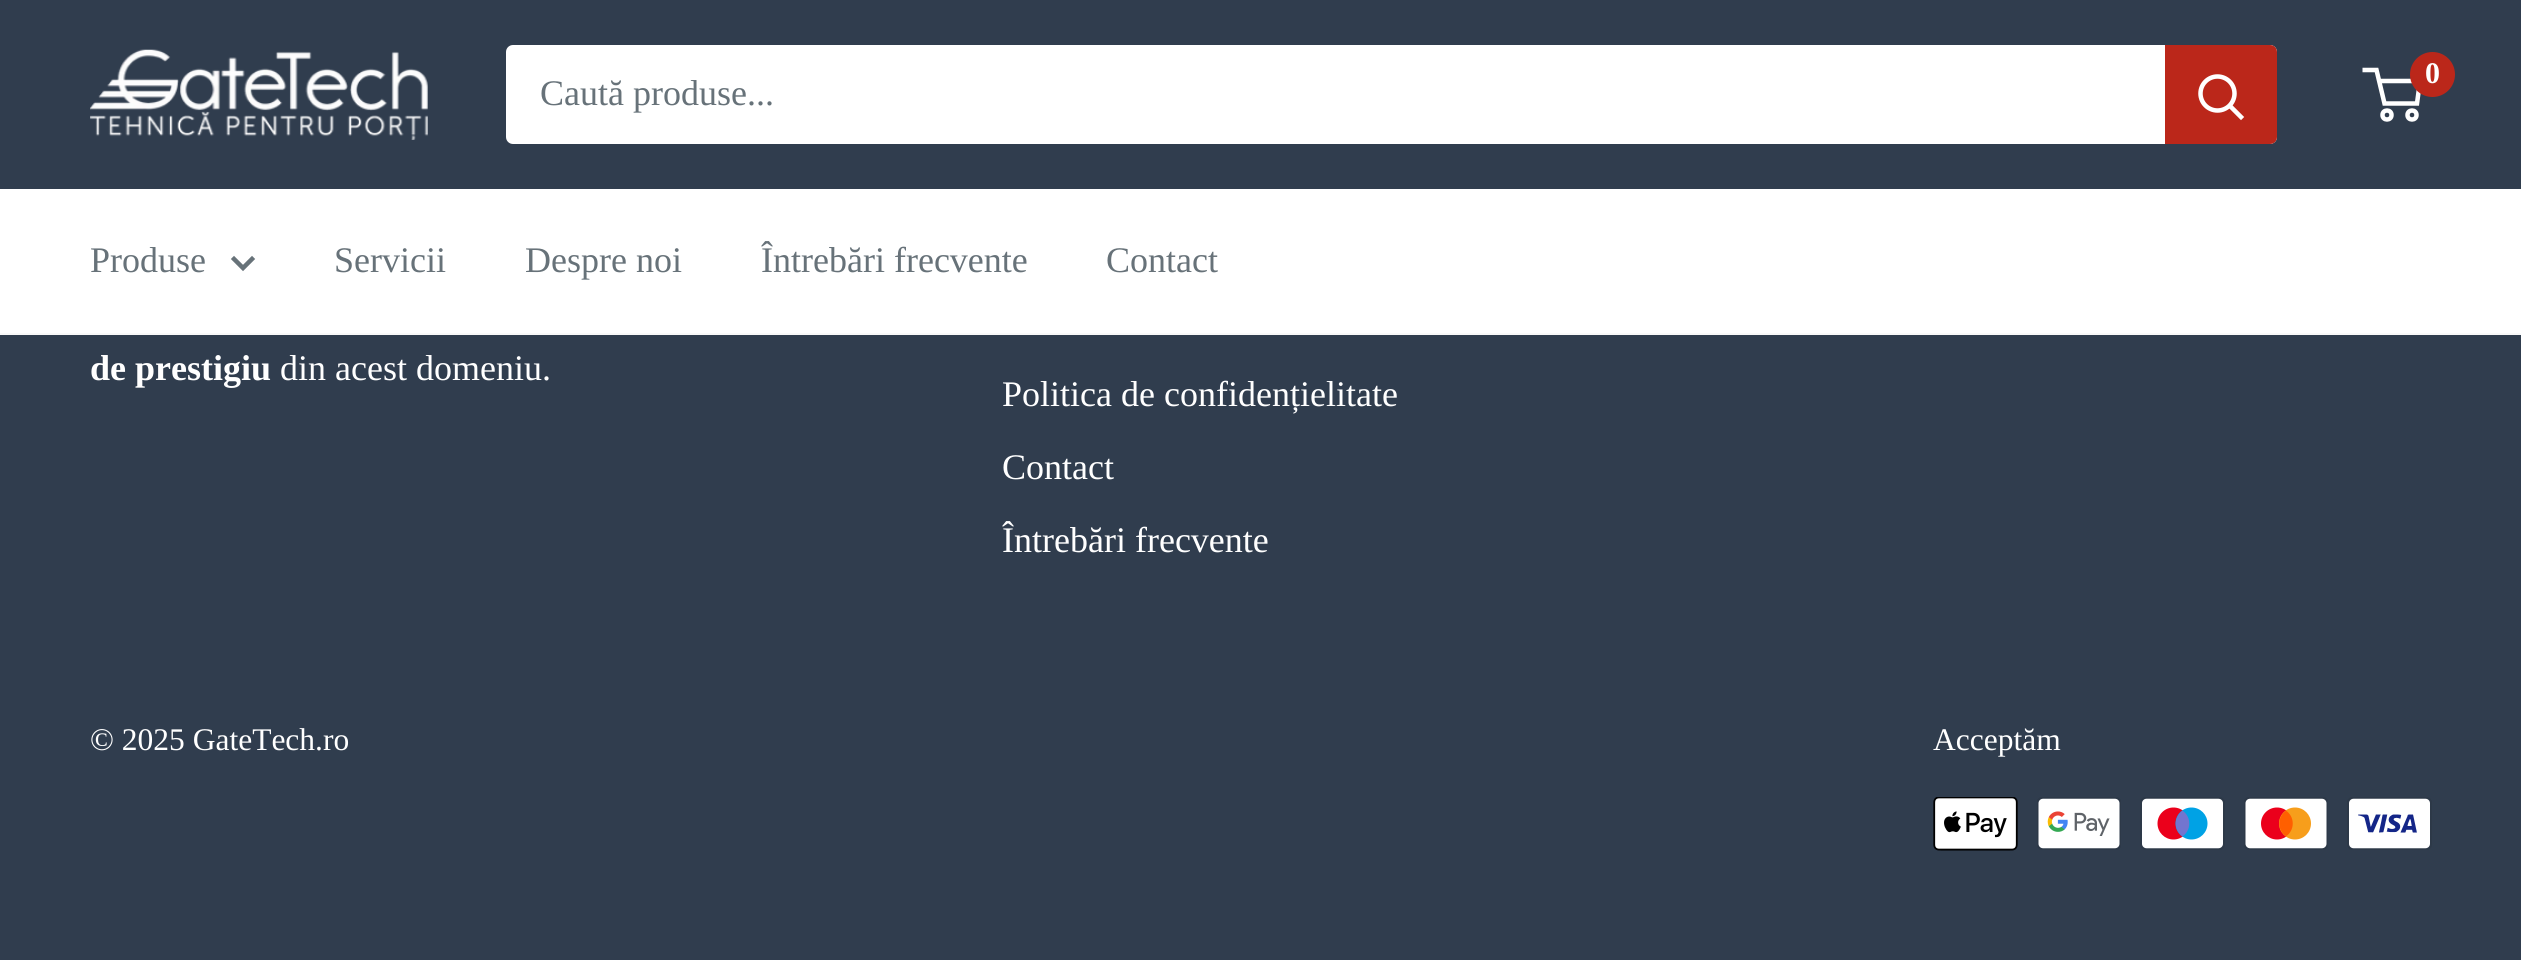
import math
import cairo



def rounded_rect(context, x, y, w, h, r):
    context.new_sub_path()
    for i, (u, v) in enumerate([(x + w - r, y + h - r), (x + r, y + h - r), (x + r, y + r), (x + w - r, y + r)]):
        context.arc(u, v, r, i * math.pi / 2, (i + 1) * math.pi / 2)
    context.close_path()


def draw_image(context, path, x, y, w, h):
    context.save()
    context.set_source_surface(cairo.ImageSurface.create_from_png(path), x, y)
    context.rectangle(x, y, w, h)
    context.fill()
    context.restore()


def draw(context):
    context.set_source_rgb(48 / 255, 61 / 255, 78 / 255)
    context.paint()
    draw_image(context, "images/1.png", 90, 49, 338, 91)
    context.arc(2387, 115, 4.5, 0, 2 * math.pi)
    context.set_source_rgb(1, 1, 1)
    context.set_line_width(4.5)
    context.stroke()
    context.arc(2412, 115, 4.5, 0, 2 * math.pi)
    context.stroke()
    context.new_path()
    context.move_to(2379, 81)
    context.line_to(2420, 81)
    context.line_to(2417, 103.5)
    context.line_to(2384.5, 103.5)
    context.line_to(2376.5, 70)
    context.line_to(2362.5, 70)
    context.stroke()
    context.set_source_rgb(187 / 255, 39 / 255, 26 / 255)
    context.arc(2432.5, 74.5, 22.5, 0, 2 * math.pi)
    context.fill()
    context.set_source_rgb(1, 1, 1)
    rounded_rect(context, 506, 45, 1771, 99, 7)
    context.fill()
    context.set_source_rgb(187 / 255, 39 / 255, 26 / 255)
    context.new_path()
    context.move_to(2165, 45)
    context.line_to(2270, 45)
    context.curve_to(2274, 45, 2277, 48, 2277, 52)
    context.line_to(2277, 137)
    context.curve_to(2277, 141, 2274, 144, 2270, 144)
    context.line_to(2165, 144)
    context.close_path()
    context.fill()
    context.new_path()
    context.move_to(2241, 117)
    context.line_to(2230, 106)
    context.set_source_rgb(1, 1, 1)
    context.set_line_cap(cairo.LineCap.SQUARE)
    context.stroke()
    context.arc(2217.5, 93.5, 17, 0, 2 * math.pi)
    context.set_line_cap(cairo.LineCap.BUTT)
    context.stroke()
    context.rectangle(0, 189, 2521, 144)
    context.fill()
    context.set_source_rgb(249 / 255, 249 / 255, 249 / 255)
    context.rectangle(0, 333, 2521, 2)
    context.fill()
    context.new_path()
    context.move_to(252, 259)
    context.line_to(243, 268)
    context.line_to(234, 259)
    context.set_source_rgb(103 / 255, 114 / 255, 121 / 255)
    context.set_line_cap(cairo.LineCap.SQUARE)
    context.stroke()
    draw_image(context, "images/2.png", 1933, 797, 85, 54)
    draw_image(context, "images/3.png", 2037, 797, 84, 53)
    draw_image(context, "images/4.png", 2140, 797, 85, 53)
    draw_image(context, "images/5.png", 2244, 797, 84, 53)
    draw_image(context, "images/6.png", 2347, 797, 85, 53)
    context.select_font_face("Liberation Serif", cairo.FontSlant.NORMAL, cairo.FontWeight.BOLD)
    context.set_font_size(30)
    context.set_source_rgb(1, 1, 1)
    context.move_to(2425, 83)
    context.show_text("0")
    context.select_font_face("Liberation Serif")
    context.set_font_size(36)
    context.set_source_rgb(103 / 255, 114 / 255, 121 / 255)
    context.move_to(540, 105)
    context.show_text("Caută produse...")
    context.move_to(90, 272)
    context.show_text("Produse")
    context.move_to(334, 272)
    context.show_text("Servicii")
    context.move_to(525, 272)
    context.show_text("Despre noi")
    context.move_to(761, 272)
    context.show_text("Întrebări frecvente")
    context.move_to(1106, 272)
    context.show_text("Contact")
    context.select_font_face("Liberation Serif", cairo.FontSlant.NORMAL, cairo.FontWeight.BOLD)
    context.set_source_rgb(1, 1, 1)
    context.move_to(90, 380)
    context.show_text("de prestigiu")
    context.select_font_face("Liberation Serif")
    context.move_to(280, 380)
    context.show_text("din acest domeniu.")
    context.move_to(1002, 406)
    context.show_text("Politica de confidențielitate")
    context.move_to(1002, 479)
    context.show_text("Contact")
    context.move_to(1002, 552)
    context.show_text("Întrebări frecvente")
    context.set_font_size(31.5)
    context.move_to(90, 750)
    context.show_text("© 2025 GateTech.ro")
    context.move_to(1933, 750)
    context.show_text("Acceptăm")


surface = cairo.ImageSurface(cairo.Format.RGB24, 2521, 960)
context = cairo.Context(surface)
options = cairo.FontOptions()
options.set_hint_metrics(cairo.HintMetrics.OFF)
options.set_hint_style(cairo.HintStyle.NONE)
context.set_font_options(options)
context.set_miter_limit(4)
draw(context)
surface.write_to_png("out.png")
